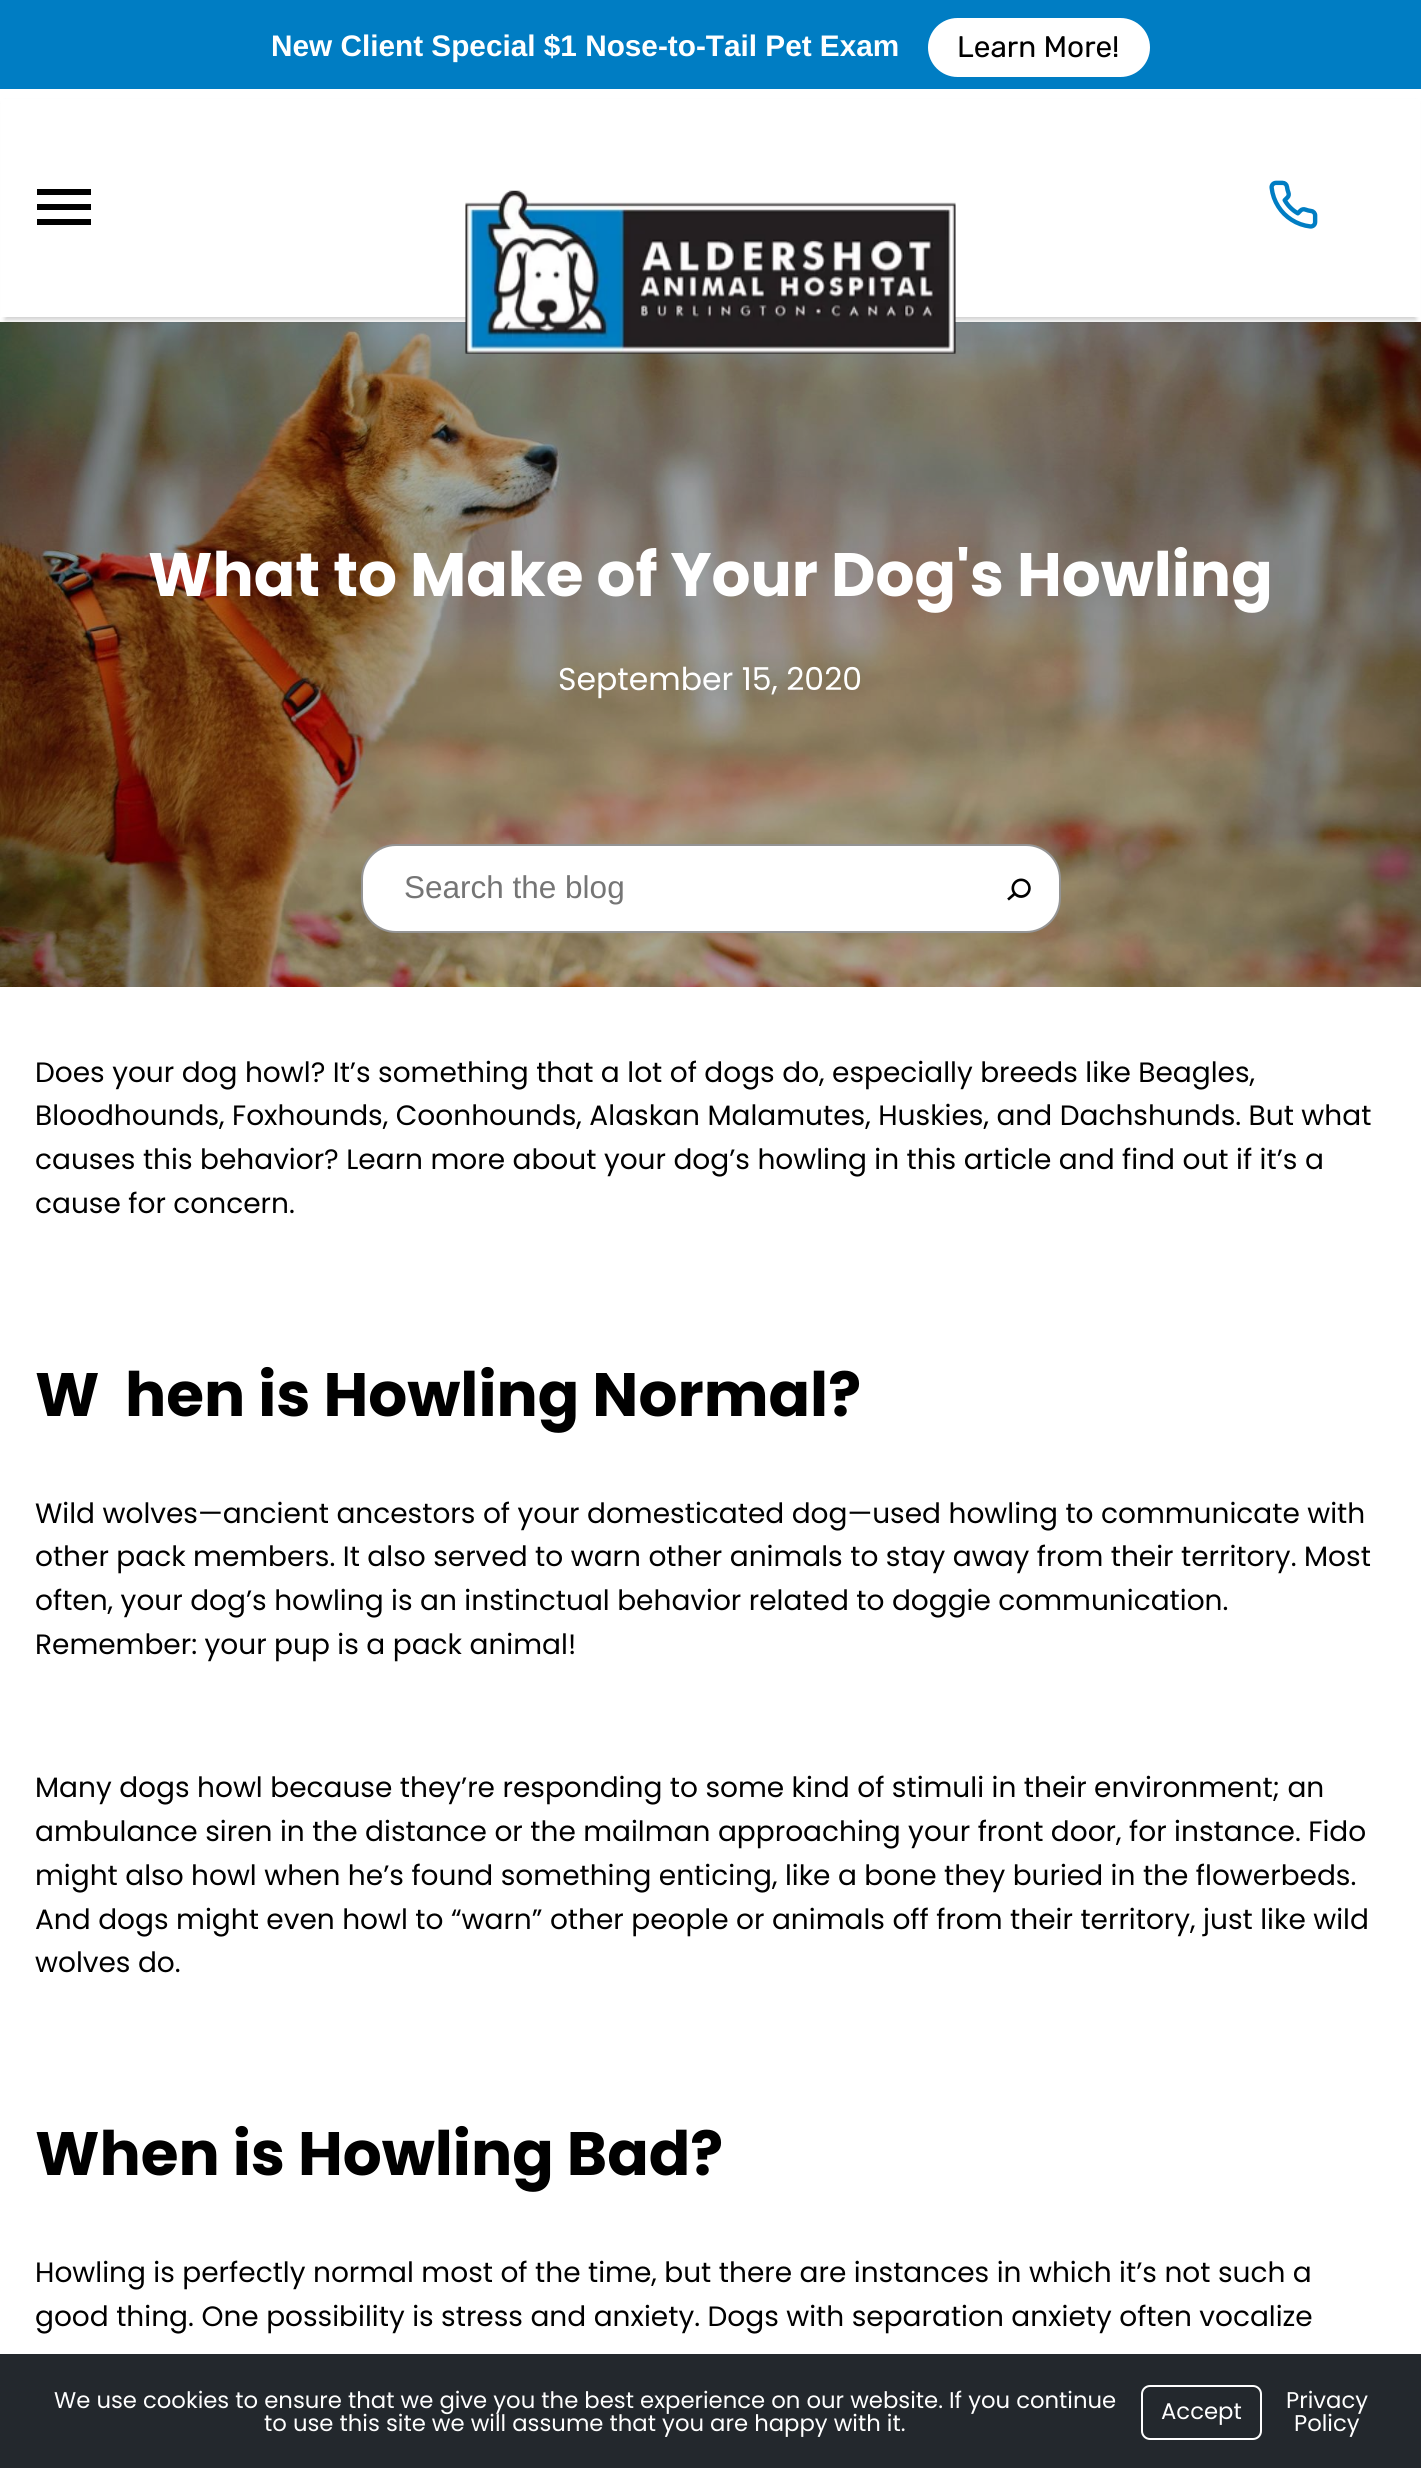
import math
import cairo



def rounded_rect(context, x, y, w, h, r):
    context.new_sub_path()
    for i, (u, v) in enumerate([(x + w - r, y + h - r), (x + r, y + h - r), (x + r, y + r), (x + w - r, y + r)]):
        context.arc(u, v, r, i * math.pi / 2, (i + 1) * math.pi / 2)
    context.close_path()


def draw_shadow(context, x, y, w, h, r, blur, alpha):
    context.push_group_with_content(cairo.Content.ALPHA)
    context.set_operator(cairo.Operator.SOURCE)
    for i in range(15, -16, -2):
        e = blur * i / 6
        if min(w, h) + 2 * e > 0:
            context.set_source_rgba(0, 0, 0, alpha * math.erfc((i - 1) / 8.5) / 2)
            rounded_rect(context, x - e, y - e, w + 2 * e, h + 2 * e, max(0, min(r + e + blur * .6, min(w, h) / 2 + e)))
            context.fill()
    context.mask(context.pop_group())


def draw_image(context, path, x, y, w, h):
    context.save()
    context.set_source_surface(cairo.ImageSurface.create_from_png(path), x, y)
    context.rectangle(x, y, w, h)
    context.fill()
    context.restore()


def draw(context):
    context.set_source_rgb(1, 1, 1)
    context.paint()
    context.set_source_rgb(0, 125 / 255, 195 / 255)
    context.rectangle(0, 0, 1421, 89)
    context.fill()
    context.set_source_rgb(1, 1, 1)
    rounded_rect(context, 928, 18, 222, 59, 29.5)
    context.fill()
    draw_image(context, "images/3.png", 0, 322, 1421, 665)
    context.set_source_rgb(0, 0, 0)
    draw_shadow(context, 5, 103, 1411, 217, 0, 2.5, 0.19)
    context.set_source_rgb(1, 1, 1)
    context.rectangle(1, 99, 1419, 218)
    context.fill()
    draw_image(context, "images/1.png", 465, 190, 491, 164)
    draw_image(context, "images/2.png", 1269, 180, 49, 49)
    rounded_rect(context, 362, 845, 698, 87, 34)
    context.fill_preserve()
    context.set_source_rgb(148 / 255, 148 / 255, 148 / 255)
    context.stroke()
    draw_image(context, "images/4.png", 1007, 878, 24, 23)
    context.set_source_rgb(0, 0, 0)
    context.new_path()
    context.move_to(37, 225)
    context.line_to(37, 219)
    context.line_to(91, 219)
    context.line_to(91, 225)
    context.close_path()
    context.move_to(37, 210)
    context.line_to(37, 204)
    context.line_to(91, 204)
    context.line_to(91, 210)
    context.close_path()
    context.move_to(37, 189)
    context.line_to(91, 189)
    context.line_to(91, 195)
    context.line_to(37, 195)
    context.close_path()
    context.fill()
    context.set_source_rgb(35 / 255, 40 / 255, 45 / 255)
    context.rectangle(0, 2354, 1421, 114)
    context.fill()
    rounded_rect(context, 1142, 2386, 119, 53, 8)
    context.set_source_rgb(1, 1, 1)
    context.stroke()
    context.select_font_face("Liberation Sans", cairo.FontSlant.NORMAL, cairo.FontWeight.BOLD)
    context.set_font_size(29.75)
    context.move_to(271, 56)
    context.show_text("New Client Special $1 Nose-to-Tail Pet Exam")
    context.select_font_face("Rubik Light")
    context.set_source_rgb(0, 0, 0)
    context.move_to(957, 57)
    context.show_text("Learn More!")
    context.select_font_face("Poppins", cairo.FontSlant.NORMAL, cairo.FontWeight.BOLD)
    context.set_font_size(61.25)
    context.set_source_rgb(1, 1, 1)
    context.move_to(148, 596)
    context.show_text("What to Make of Your Dog's Howling")
    context.select_font_face("Poppins")
    context.set_font_size(31.5)
    context.move_to(558, 690)
    context.show_text("September 15, 2020")
    context.select_font_face("Liberation Sans")
    context.set_source_rgb(117 / 255, 117 / 255, 117 / 255)
    context.move_to(404, 898)
    context.show_text("Search the blog")
    context.select_font_face("Poppins")
    context.set_font_size(28)
    context.set_source_rgb(0, 0, 0)
    context.move_to(35, 1082)
    context.show_text("Does your dog howl? It’s something that a lot of dogs do, especially breeds like Beagles,")
    context.move_to(35, 1125)
    context.show_text("Bloodhounds, Foxhounds, Coonhounds, Alaskan Malamutes, Huskies, and Dachshunds. But what")
    context.move_to(35, 1169)
    context.show_text("causes this behavior? Learn more about your dog’s howling in this article and find out if it’s a")
    context.move_to(35, 1213)
    context.show_text("cause for concern.")
    context.select_font_face("Poppins", cairo.FontSlant.NORMAL, cairo.FontWeight.BOLD)
    context.set_font_size(61.25)
    context.move_to(35, 1416)
    context.show_text("W")
    context.move_to(125, 1416)
    context.show_text("hen is Howling Normal?")
    context.select_font_face("Poppins")
    context.set_font_size(28)
    context.move_to(35, 1523)
    context.show_text("Wild wolves—ancient ancestors of your domesticated dog—used howling to communicate with")
    context.move_to(35, 1566)
    context.show_text("other pack members. It also served to warn other animals to stay away from their territory. Most")
    context.move_to(35, 1610)
    context.show_text("often, your dog’s howling is an instinctual behavior related to doggie communication.")
    context.move_to(35, 1654)
    context.show_text("Remember: your pup is a pack animal!")
    context.move_to(35, 1797)
    context.show_text("Many dogs howl because they’re responding to some kind of stimuli in their environment; an")
    context.move_to(35, 1841)
    context.show_text("ambulance siren in the distance or the mailman approaching your front door, for instance. Fido")
    context.move_to(35, 1885)
    context.show_text("might also howl when he’s found something enticing, like a bone they buried in the flowerbeds.")
    context.move_to(35, 1929)
    context.show_text("And dogs might even howl to “warn” other people or animals off from their territory, just like wild")
    context.move_to(35, 1972)
    context.show_text("wolves do.")
    context.select_font_face("Poppins", cairo.FontSlant.NORMAL, cairo.FontWeight.BOLD)
    context.set_font_size(61.25)
    context.move_to(35, 2175)
    context.show_text("When is Howling Bad?")
    context.select_font_face("Poppins")
    context.set_font_size(28)
    context.move_to(35, 2282)
    context.show_text("Howling is perfectly normal most of the time, but there are instances in which it’s not such a")
    context.move_to(35, 2326)
    context.show_text("good thing. One possibility is stress and anxiety. Dogs with separation anxiety often vocalize")
    context.set_font_size(22.75)
    context.set_source_rgb(1, 1, 1)
    context.move_to(54, 2408)
    context.show_text("We use cookies to ensure that we give you the best experience on our website. If you continue")
    context.move_to(264, 2431)
    context.show_text("to use this site we will assume that you are happy with it.")
    context.move_to(1161, 2419)
    context.show_text("Accept")
    context.move_to(1286, 2408)
    context.show_text("Privacy")
    context.move_to(1294, 2431)
    context.show_text("Policy")


surface = cairo.ImageSurface(cairo.Format.RGB24, 1421, 2468)
context = cairo.Context(surface)
options = cairo.FontOptions()
options.set_hint_metrics(cairo.HintMetrics.OFF)
options.set_hint_style(cairo.HintStyle.NONE)
context.set_font_options(options)
context.set_miter_limit(4)
draw(context)
surface.write_to_png("out.png")
